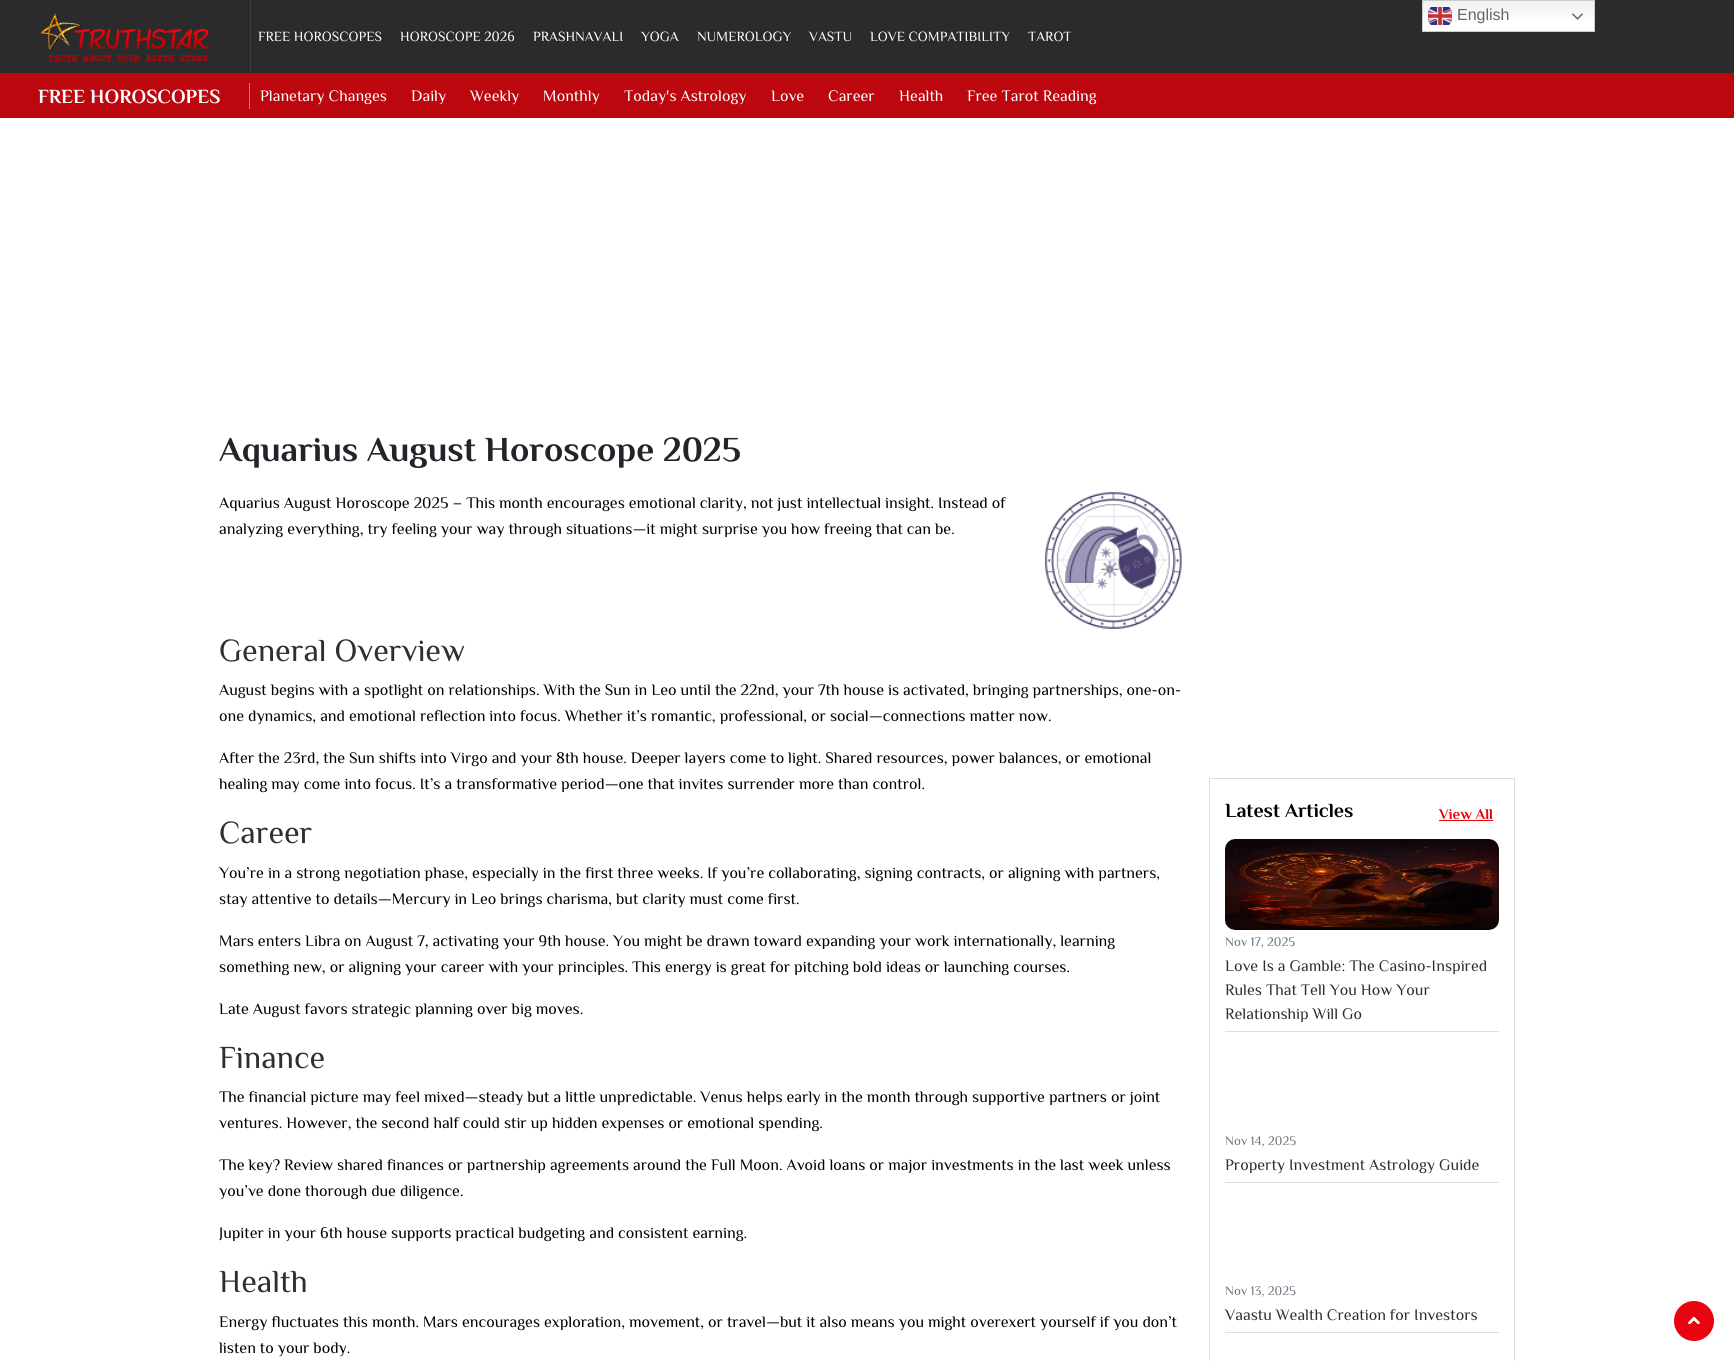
import math
import cairo



def draw_image(context, path, x, y, w, h):
    context.save()
    context.set_source_surface(cairo.ImageSurface.create_from_png(path), x, y)
    context.rectangle(x, y, w, h)
    context.fill()
    context.restore()


def draw(context):
    context.set_source_rgb(43 / 255, 43 / 255, 43 / 255)
    context.paint()
    gradient = cairo.LinearGradient(1509, 0, 1509, 32)
    gradient.add_color_stop_rgba(0, 239 / 255, 239 / 255, 239 / 255, 1)
    gradient.add_color_stop_rgba(0.7, 1, 1, 1, 1)
    context.set_source(gradient)
    context.rectangle(1423, 1, 171, 30)
    context.fill()
    context.rectangle(1422.5, 0.5, 172, 31)
    context.set_source_rgb(204 / 255, 204 / 255, 204 / 255)
    context.set_line_width(1)
    context.stroke()
    draw_image(context, "images/1.png", 1428, 7, 24, 18)
    draw_image(context, "images/2.png", 1572, 13, 11, 7)
    context.set_source_rgb(1, 1, 1)
    context.rectangle(0, 118, 1734, 1243)
    context.fill()
    draw_image(context, "images/3.png", 1045, 492, 137, 137)
    context.rectangle(1209.5, 778.5, 305, 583)
    context.set_source_rgb(221 / 255, 221 / 255, 221 / 255)
    context.stroke()
    context.set_source_rgb(232 / 255, 5 / 255, 16 / 255)
    context.rectangle(1439, 820, 54, 1)
    context.fill()
    context.set_source_rgb(221 / 255, 221 / 255, 221 / 255)
    context.rectangle(1225, 1031, 274, 1)
    context.fill()
    draw_image(context, "images/4.png", 1225, 839, 274, 91)
    context.rectangle(1225, 1182, 274, 1)
    context.fill()
    context.rectangle(1225, 1332, 274, 1)
    context.fill()
    context.set_source_rgb(232 / 255, 5 / 255, 16 / 255)
    context.arc(1694, 1321, 20, 0, 2 * math.pi)
    context.fill()
    draw_image(context, "images/5.png", 1688, 1317, 12, 7)
    draw_image(context, "images/6.png", 1688, 1317, 12, 7)
    context.set_source_rgb(64 / 255, 64 / 255, 64 / 255)
    context.rectangle(250, 0, 1, 72)
    context.fill()
    draw_image(context, "images/7.png", 41, 13, 168, 49)
    context.set_source_rgb(188 / 255, 7 / 255, 15 / 255)
    context.rectangle(0, 73, 1734, 45)
    context.fill()
    context.set_source_rgb(217 / 255, 116 / 255, 121 / 255)
    context.rectangle(249, 83, 1, 26)
    context.fill()
    context.select_font_face("Liberation Sans")
    context.set_font_size(16)
    context.set_source_rgb(102 / 255, 102 / 255, 102 / 255)
    context.move_to(1457, 20)
    context.show_text("English")
    context.select_font_face("Philosopher", cairo.FontSlant.NORMAL, cairo.FontWeight.BOLD)
    context.set_font_size(35)
    context.set_source_rgb(33 / 255, 37 / 255, 41 / 255)
    context.move_to(219, 461)
    context.show_text("Aquarius August Horoscope 2025")
    context.select_font_face("Philosopher")
    context.set_font_size(16)
    context.set_source_rgb(0, 0, 0)
    context.move_to(219, 508)
    context.show_text("Aquarius August Horoscope 2025 – This month encourages emotional clarity, not just intellectual insight. Instead of")
    context.move_to(219, 534)
    context.show_text("analyzing everything, try feeling your way through situations—it might surprise you how freeing that can be.")
    context.set_font_size(32)
    context.set_source_rgb(48 / 255, 47 / 255, 47 / 255)
    context.move_to(219, 661)
    context.show_text("General Overview")
    context.set_font_size(16)
    context.set_source_rgb(0, 0, 0)
    context.move_to(219, 695)
    context.show_text("August begins with a spotlight on relationships. With the Sun in Leo until the 22nd, your 7th house is activated, bringing partnerships, one-on-")
    context.move_to(219, 721)
    context.show_text("one dynamics, and emotional reflection into focus. Whether it’s romantic, professional, or social—connections matter now.")
    context.move_to(219, 763)
    context.show_text("After the 23rd, the Sun shifts into Virgo and your 8th house. Deeper layers come to light. Shared resources, power balances, or emotional")
    context.move_to(219, 789)
    context.show_text("healing may come into focus. It’s a transformative period—one that invites surrender more than control.")
    context.set_font_size(32)
    context.set_source_rgb(48 / 255, 47 / 255, 47 / 255)
    context.move_to(219, 843)
    context.show_text("Career")
    context.set_font_size(16)
    context.set_source_rgb(0, 0, 0)
    context.move_to(219, 878)
    context.show_text("You’re in a strong negotiation phase, especially in the first three weeks. If you’re collaborating, signing contracts, or aligning with partners,")
    context.move_to(219, 904)
    context.show_text("stay attentive to details—Mercury in Leo brings charisma, but clarity must come first.")
    context.move_to(219, 946)
    context.show_text("Mars enters Libra on August 7, activating your 9th house. You might be drawn toward expanding your work internationally, learning")
    context.move_to(219, 972)
    context.show_text("something new, or aligning your career with your principles. This energy is great for pitching bold ideas or launching courses.")
    context.move_to(219, 1014)
    context.show_text("Late August favors strategic planning over big moves.")
    context.set_font_size(32)
    context.set_source_rgb(48 / 255, 47 / 255, 47 / 255)
    context.move_to(219, 1068)
    context.show_text("Finance")
    context.set_font_size(16)
    context.set_source_rgb(0, 0, 0)
    context.move_to(219, 1102)
    context.show_text("The financial picture may feel mixed—steady but a little unpredictable. Venus helps early in the month through supportive partners or joint")
    context.move_to(219, 1128)
    context.show_text("ventures. However, the second half could stir up hidden expenses or emotional spending.")
    context.move_to(219, 1170)
    context.show_text("The key? Review shared finances or partnership agreements around the Full Moon. Avoid loans or major investments in the last week unless")
    context.move_to(219, 1196)
    context.show_text("you’ve done thorough due diligence.")
    context.move_to(219, 1238)
    context.show_text("Jupiter in your 6th house supports practical budgeting and consistent earning.")
    context.set_font_size(32)
    context.set_source_rgb(48 / 255, 47 / 255, 47 / 255)
    context.move_to(219, 1292)
    context.show_text("Health")
    context.set_font_size(16)
    context.set_source_rgb(0, 0, 0)
    context.move_to(219, 1327)
    context.show_text("Energy fluctuates this month. Mars encourages exploration, movement, or travel—but it also means you might overexert yourself if you don’t")
    context.move_to(219, 1353)
    context.show_text("listen to your body.")
    context.select_font_face("Philosopher", cairo.FontSlant.NORMAL, cairo.FontWeight.BOLD)
    context.set_font_size(20)
    context.move_to(1225, 817)
    context.show_text("Latest Articles")
    context.set_font_size(15)
    context.set_source_rgb(232 / 255, 5 / 255, 16 / 255)
    context.move_to(1439, 819)
    context.show_text("View All")
    context.select_font_face("Philosopher")
    context.set_font_size(13)
    context.set_source_rgb(108 / 255, 117 / 255, 125 / 255)
    context.move_to(1225, 946)
    context.show_text("Nov 17, 2025")
    context.set_font_size(16)
    context.set_source_rgb(48 / 255, 47 / 255, 47 / 255)
    context.move_to(1225, 971)
    context.show_text("Love Is a Gamble: The Casino-Inspired")
    context.move_to(1225, 995)
    context.show_text("Rules That Tell You How Your")
    context.move_to(1225, 1019)
    context.show_text("Relationship Will Go")
    context.set_font_size(13)
    context.set_source_rgb(108 / 255, 117 / 255, 125 / 255)
    context.move_to(1225, 1145)
    context.show_text("Nov 14, 2025")
    context.set_font_size(16)
    context.set_source_rgb(48 / 255, 47 / 255, 47 / 255)
    context.move_to(1225, 1170)
    context.show_text("Property Investment Astrology Guide")
    context.set_font_size(13)
    context.set_source_rgb(108 / 255, 117 / 255, 125 / 255)
    context.move_to(1225, 1295)
    context.show_text("Nov 13, 2025")
    context.set_font_size(16)
    context.set_source_rgb(48 / 255, 47 / 255, 47 / 255)
    context.move_to(1225, 1320)
    context.show_text("Vaastu Wealth Creation for Investors")
    context.set_font_size(14)
    context.set_source_rgb(1, 1, 1)
    context.move_to(258, 41)
    context.show_text("FREE HOROSCOPES")
    context.move_to(400, 41)
    context.show_text("HOROSCOPE 2026")
    context.move_to(533, 41)
    context.show_text("PRASHNAVALI")
    context.move_to(641, 41)
    context.show_text("YOGA")
    context.move_to(697, 41)
    context.show_text("NUMEROLOGY")
    context.move_to(809, 41)
    context.show_text("VASTU")
    context.move_to(870, 41)
    context.show_text("LOVE COMPATIBILITY")
    context.move_to(1028, 41)
    context.show_text("TAROT")
    context.select_font_face("Philosopher", cairo.FontSlant.NORMAL, cairo.FontWeight.BOLD)
    context.set_font_size(20)
    context.move_to(38, 103)
    context.show_text("FREE HOROSCOPES")
    context.select_font_face("Philosopher")
    context.set_font_size(16)
    context.move_to(260, 101)
    context.show_text("Planetary Changes")
    context.move_to(411, 101)
    context.show_text("Daily")
    context.move_to(470, 101)
    context.show_text("Weekly")
    context.move_to(543, 101)
    context.show_text("Monthly")
    context.move_to(624, 101)
    context.show_text("Today's Astrology")
    context.move_to(771, 101)
    context.show_text("Love")
    context.move_to(828, 101)
    context.show_text("Career")
    context.move_to(899, 101)
    context.show_text("Health")
    context.move_to(967, 101)
    context.show_text("Free Tarot Reading")


surface = cairo.ImageSurface(cairo.Format.RGB24, 1734, 1361)
context = cairo.Context(surface)
options = cairo.FontOptions()
options.set_hint_metrics(cairo.HintMetrics.OFF)
options.set_hint_style(cairo.HintStyle.NONE)
context.set_font_options(options)
context.set_miter_limit(4)
draw(context)
surface.write_to_png("out.png")
